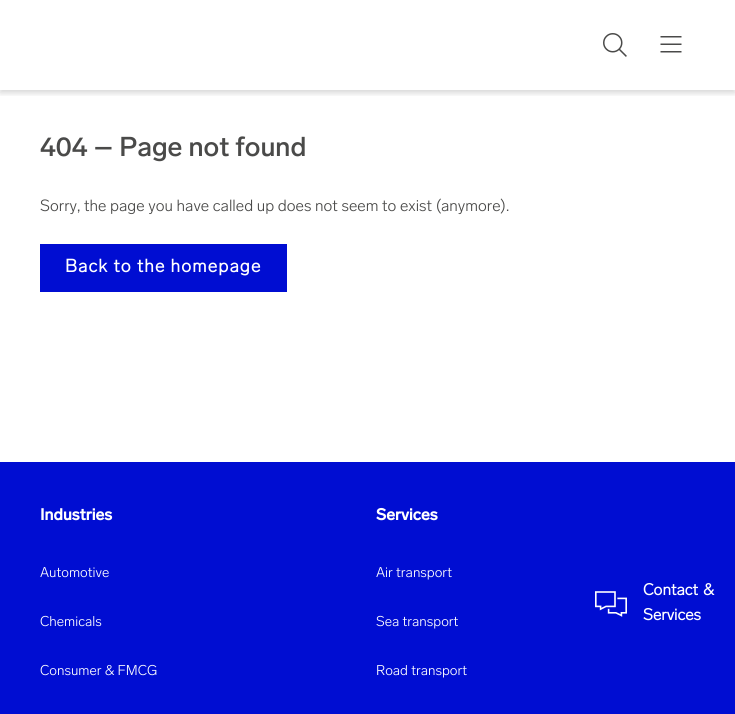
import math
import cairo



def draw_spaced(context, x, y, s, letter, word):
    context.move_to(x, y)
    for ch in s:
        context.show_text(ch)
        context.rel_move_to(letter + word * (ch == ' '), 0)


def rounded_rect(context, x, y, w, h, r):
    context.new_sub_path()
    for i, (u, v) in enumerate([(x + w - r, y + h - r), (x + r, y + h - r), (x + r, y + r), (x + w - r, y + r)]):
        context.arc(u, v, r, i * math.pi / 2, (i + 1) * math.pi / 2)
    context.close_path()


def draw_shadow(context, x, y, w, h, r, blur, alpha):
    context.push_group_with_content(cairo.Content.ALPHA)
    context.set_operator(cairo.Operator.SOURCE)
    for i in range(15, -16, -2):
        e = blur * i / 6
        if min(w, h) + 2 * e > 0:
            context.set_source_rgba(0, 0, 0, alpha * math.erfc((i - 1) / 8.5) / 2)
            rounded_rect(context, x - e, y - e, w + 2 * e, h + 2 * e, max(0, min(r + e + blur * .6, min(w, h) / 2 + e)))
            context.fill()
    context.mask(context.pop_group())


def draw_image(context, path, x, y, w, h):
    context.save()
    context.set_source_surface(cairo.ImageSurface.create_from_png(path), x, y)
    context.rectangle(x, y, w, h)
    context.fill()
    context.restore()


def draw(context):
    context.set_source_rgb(1, 1, 1)
    context.paint()
    context.save()
    context.rectangle(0, 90, 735, 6)
    context.clip()
    context.set_source_rgb(0, 0, 0)
    draw_shadow(context, 0, 3, 735, 90, 0, 3, 0.16)
    context.restore()
    draw_image(context, "images/1.png", 603, 33, 24, 24)
    draw_image(context, "images/2.png", 660, 36, 22, 17)
    context.set_source_rgb(0, 13 / 255, 210 / 255)
    context.rectangle(40, 244, 247, 48)
    context.fill()
    context.rectangle(0, 462, 735, 252)
    context.fill()
    draw_image(context, "images/3.png", 595, 591, 32, 26)
    context.select_font_face("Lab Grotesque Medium")
    context.set_font_size(27)
    context.set_source_rgb(74 / 255, 74 / 255, 73 / 255)
    context.move_to(40, 156)
    context.show_text("404 – Page not found")
    context.select_font_face("Lab Grotesque Light")
    context.set_font_size(16)
    context.move_to(40, 211)
    context.show_text("Sorry, the page you have called up does not seem to exist (anymore).")
    context.select_font_face("Lab Grotesque", cairo.FontSlant.NORMAL, cairo.FontWeight.BOLD)
    context.set_font_size(18)
    context.set_source_rgb(1, 1, 1)
    draw_spaced(context, 65, 272, "Back to the homepage", 1.1, 0)
    context.set_font_size(16)
    context.move_to(643, 595)
    context.show_text("Contact")
    context.move_to(703, 595)
    context.show_text("&")
    context.move_to(643, 620)
    context.show_text("Services")
    context.select_font_face("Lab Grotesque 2", cairo.FontSlant.NORMAL, cairo.FontWeight.BOLD)
    context.move_to(40, 520)
    context.show_text("Industries")
    context.select_font_face("Lab Grotesque Light")
    context.set_font_size(14)
    context.move_to(40, 577)
    context.show_text("Automotive")
    context.move_to(40, 626)
    context.show_text("Chemicals")
    context.move_to(40, 675)
    context.show_text("Consumer & FMCG")
    context.select_font_face("Lab Grotesque 2", cairo.FontSlant.NORMAL, cairo.FontWeight.BOLD)
    context.set_font_size(16)
    context.move_to(376, 520)
    context.show_text("Services")
    context.select_font_face("Lab Grotesque Light")
    context.set_font_size(14)
    context.move_to(376, 577)
    context.show_text("Air transport")
    context.move_to(376, 626)
    context.show_text("Sea transport")
    context.move_to(376, 675)
    context.show_text("Road transport")


surface = cairo.ImageSurface(cairo.Format.RGB24, 735, 714)
context = cairo.Context(surface)
options = cairo.FontOptions()
options.set_hint_metrics(cairo.HintMetrics.OFF)
options.set_hint_style(cairo.HintStyle.NONE)
context.set_font_options(options)
context.set_miter_limit(4)
draw(context)
surface.write_to_png("out.png")
